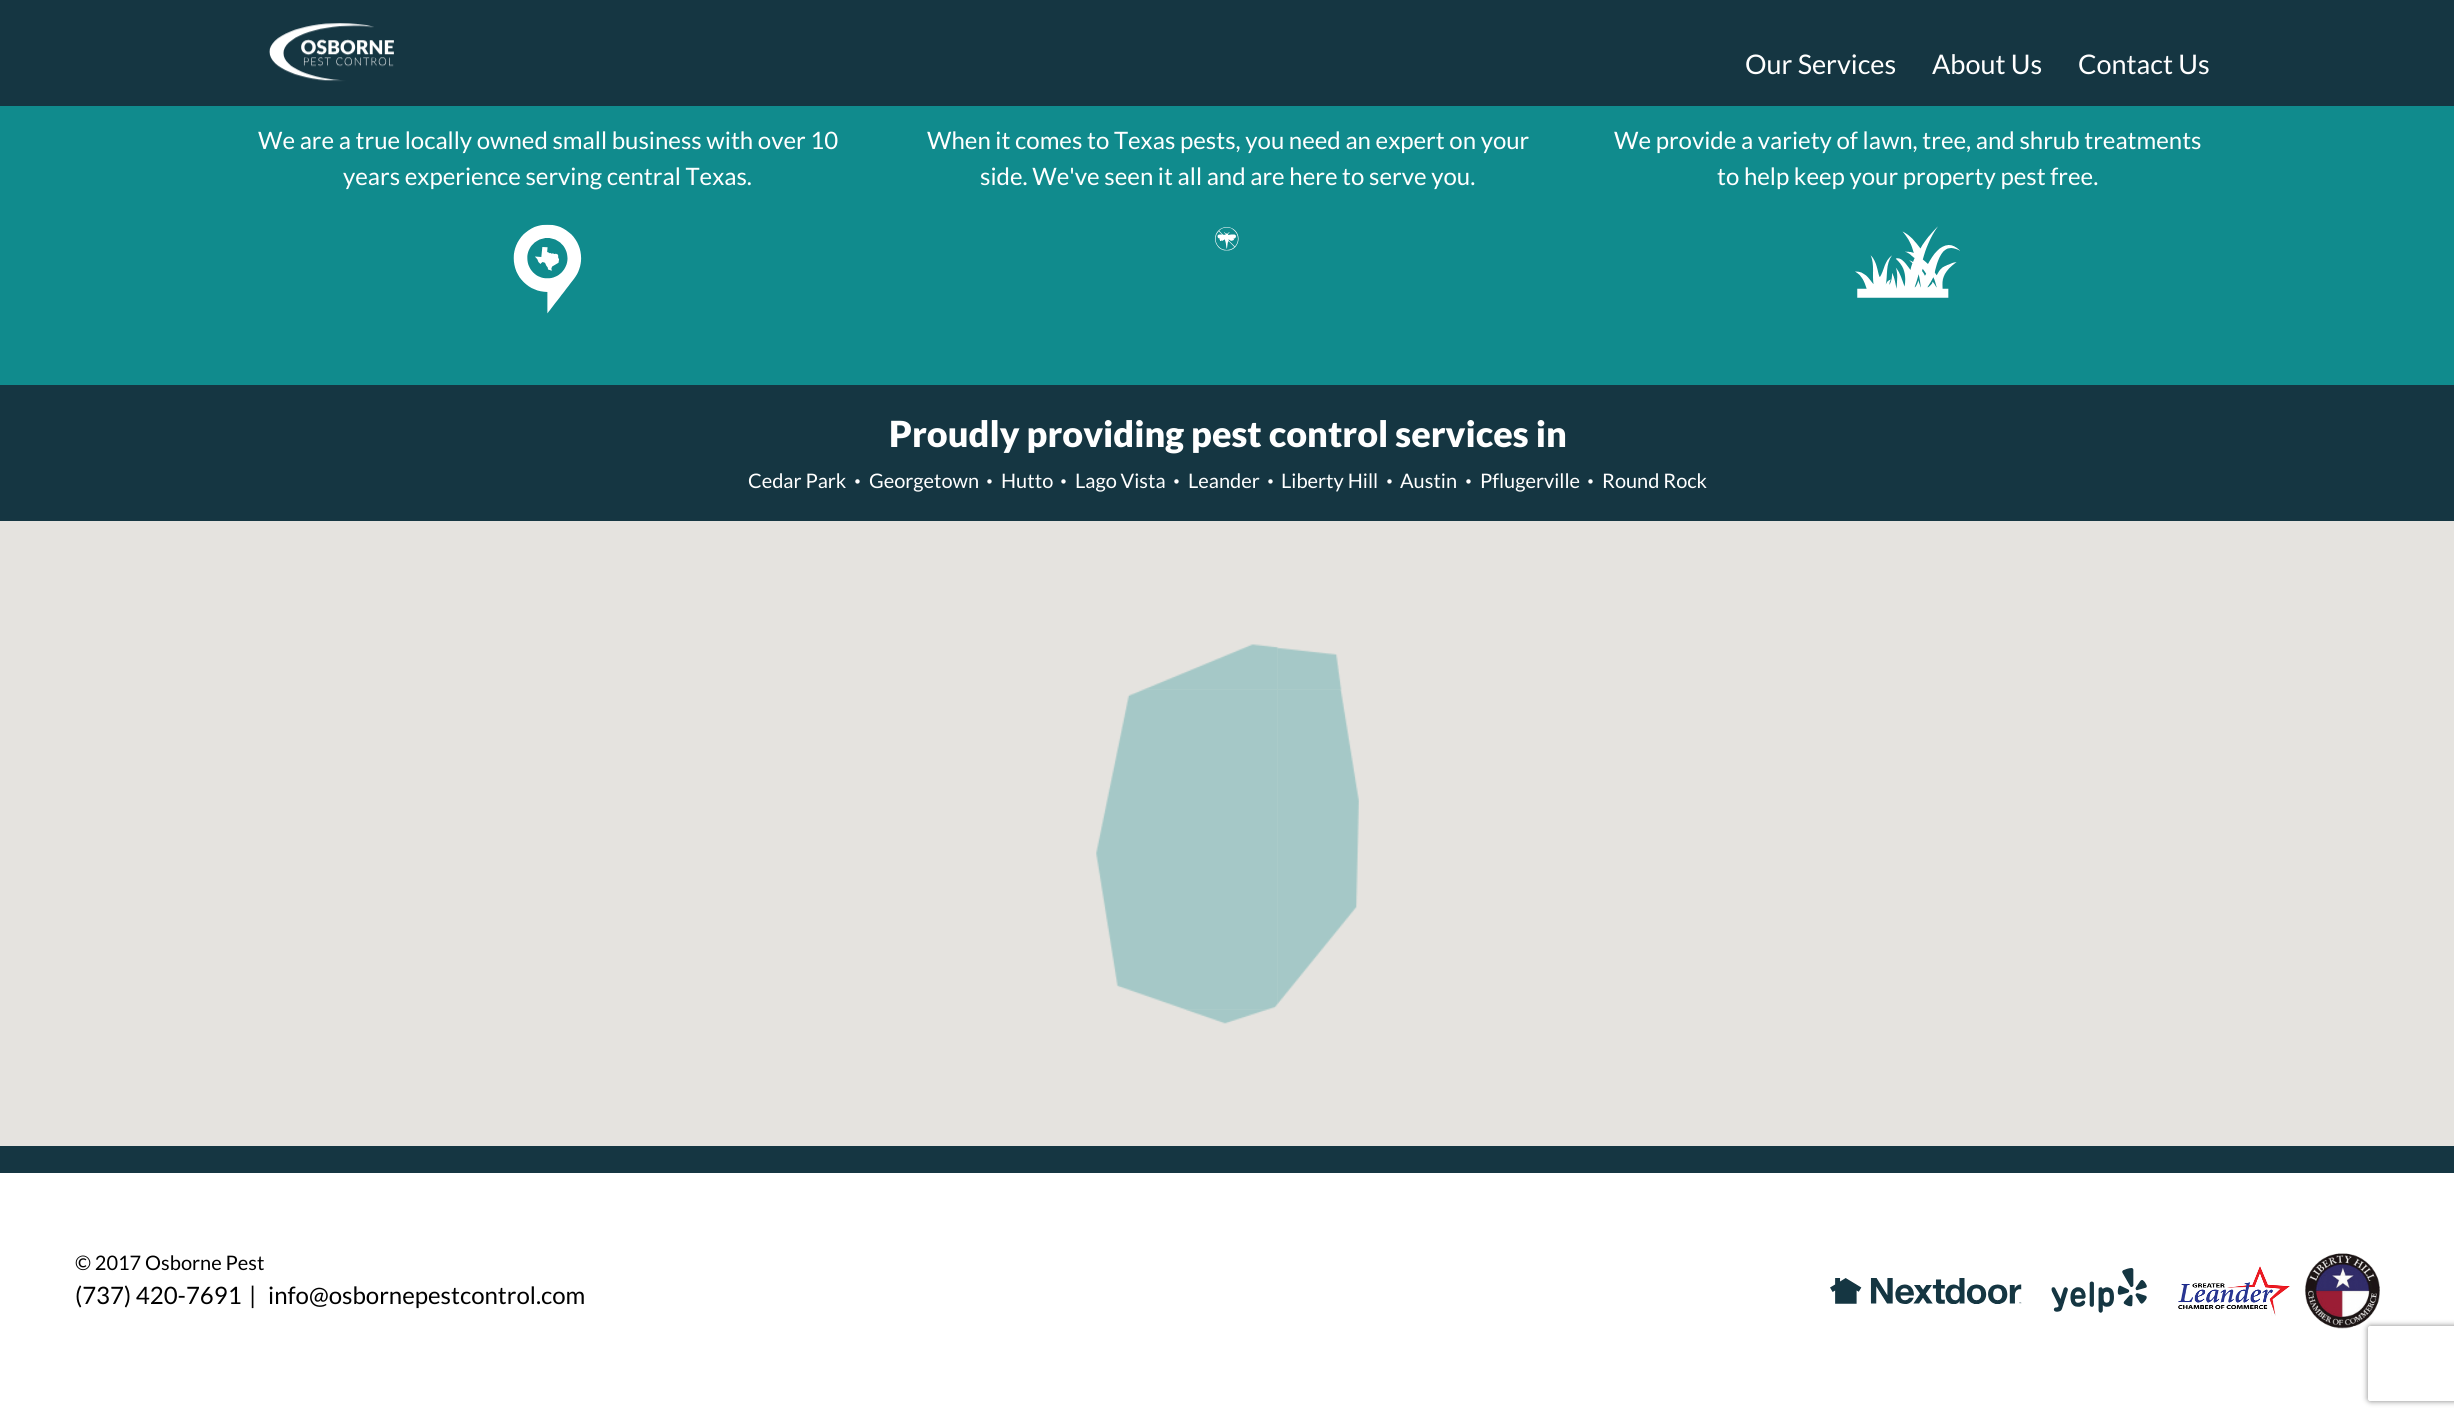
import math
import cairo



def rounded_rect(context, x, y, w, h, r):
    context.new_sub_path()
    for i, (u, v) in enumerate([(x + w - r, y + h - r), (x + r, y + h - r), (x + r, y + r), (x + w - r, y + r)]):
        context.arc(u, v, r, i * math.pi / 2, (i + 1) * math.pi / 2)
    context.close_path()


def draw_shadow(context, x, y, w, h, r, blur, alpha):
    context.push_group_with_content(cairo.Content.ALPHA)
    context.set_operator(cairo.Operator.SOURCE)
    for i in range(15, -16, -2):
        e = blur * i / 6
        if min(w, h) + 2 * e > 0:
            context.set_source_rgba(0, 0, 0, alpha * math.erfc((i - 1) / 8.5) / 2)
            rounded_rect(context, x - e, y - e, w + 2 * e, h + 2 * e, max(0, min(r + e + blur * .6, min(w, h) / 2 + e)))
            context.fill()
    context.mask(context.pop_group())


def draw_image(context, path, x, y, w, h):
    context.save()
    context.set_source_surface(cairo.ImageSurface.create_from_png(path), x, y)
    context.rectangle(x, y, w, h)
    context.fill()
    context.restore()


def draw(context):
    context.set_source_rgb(1, 1, 1)
    context.paint()
    context.set_source_rgb(21 / 255, 54 / 255, 66 / 255)
    context.rectangle(0, 0, 2454, 106)
    context.fill()
    draw_image(context, "images/1.png", 269, 23, 125, 59)
    context.set_source_rgb(16 / 255, 139 / 255, 141 / 255)
    context.rectangle(0, 106, 2454, 279)
    context.fill()
    draw_image(context, "images/2.png", 513, 224, 69, 90)
    draw_image(context, "images/3.png", 1215, 227, 24, 24)
    draw_image(context, "images/4.png", 1855, 226, 105, 72)
    context.set_source_rgb(21 / 255, 54 / 255, 66 / 255)
    context.rectangle(0, 385, 2454, 136)
    context.fill()
    context.set_source_rgb(229 / 255, 227 / 255, 223 / 255)
    context.rectangle(0, 521, 2454, 625)
    context.fill()
    draw_image(context, "images/8.png", 1277, 689, 82, 315)
    draw_image(context, "images/7.png", 1096, 689, 182, 321)
    draw_image(context, "images/5.png", 1144, 644, 134, 46)
    draw_image(context, "images/6.png", 1277, 647, 65, 43)
    draw_image(context, "images/9.png", 1186, 1009, 81, 15)
    context.set_source_rgb(21 / 255, 54 / 255, 66 / 255)
    context.rectangle(0, 1146, 2454, 27)
    context.fill()
    draw_image(context, "images/10.png", 1830, 1278, 192, 26)
    draw_image(context, "images/11.png", 2051, 1268, 96, 45)
    draw_image(context, "images/12.png", 2178, 1266, 112, 50)
    draw_image(context, "images/13.png", 2305, 1253, 75, 76)
    context.save()
    context.set_fill_rule(cairo.FillRule.EVEN_ODD)
    context.new_path()
    context.move_to(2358, 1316)
    context.line_to(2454, 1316)
    context.line_to(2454, 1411)
    context.line_to(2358, 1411)
    context.close_path()
    context.move_to(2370.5, 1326)
    context.line_to(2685.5, 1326)
    context.curve_to(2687, 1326, 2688, 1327, 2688, 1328.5)
    context.line_to(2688, 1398.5)
    context.curve_to(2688, 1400, 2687, 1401, 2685.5, 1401)
    context.line_to(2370.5, 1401)
    context.curve_to(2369, 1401, 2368, 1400, 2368, 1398.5)
    context.line_to(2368, 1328.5)
    context.curve_to(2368, 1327, 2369, 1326, 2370.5, 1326)
    context.close_path()
    context.clip()
    context.set_source_rgb(128 / 255, 128 / 255, 128 / 255)
    draw_shadow(context, 2368, 1326, 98, 75, 2.5, 3, 1)
    context.restore()
    context.select_font_face("Lato")
    context.set_font_size(27)
    context.set_source_rgb(1, 1, 1)
    context.move_to(1745, 74)
    context.show_text("Our Services")
    context.move_to(1932, 74)
    context.show_text("About Us")
    context.move_to(2078, 74)
    context.show_text("Contact Us")
    context.set_font_size(24)
    context.move_to(258, 149)
    context.show_text("We are a true locally owned small business with over 10")
    context.move_to(343, 185)
    context.show_text("years experience serving central Texas.")
    context.move_to(927, 149)
    context.show_text("When it comes to Texas pests, you need an expert on your")
    context.move_to(980, 185)
    context.show_text("side. We've seen it all and are here to serve you.")
    context.move_to(1614, 149)
    context.show_text("We provide a variety of lawn, tree, and shrub treatments")
    context.move_to(1717, 185)
    context.show_text("to help keep your property pest free.")
    context.select_font_face("Lato Black")
    context.set_font_size(36)
    context.move_to(889, 447)
    context.show_text("Proudly providing pest control services in")
    context.select_font_face("Lato")
    context.set_font_size(20)
    context.move_to(748, 488)
    context.show_text("Cedar Park")
    context.set_font_size(12)
    context.move_to(854, 485)
    context.show_text("•")
    context.set_font_size(20)
    context.move_to(869, 488)
    context.show_text("Georgetown")
    context.set_font_size(12)
    context.move_to(986, 485)
    context.show_text("•")
    context.set_font_size(20)
    context.move_to(1001, 488)
    context.show_text("Hutto")
    context.set_font_size(12)
    context.move_to(1060, 485)
    context.show_text("•")
    context.set_font_size(20)
    context.move_to(1075, 488)
    context.show_text("Lago Vista")
    context.set_font_size(12)
    context.move_to(1173, 485)
    context.show_text("•")
    context.set_font_size(20)
    context.move_to(1188, 488)
    context.show_text("Leander")
    context.set_font_size(12)
    context.move_to(1267, 485)
    context.show_text("•")
    context.set_font_size(20)
    context.move_to(1281, 488)
    context.show_text("Liberty Hill")
    context.set_font_size(12)
    context.move_to(1386, 485)
    context.show_text("•")
    context.set_font_size(20)
    context.move_to(1400, 488)
    context.show_text("Austin")
    context.set_font_size(12)
    context.move_to(1465, 485)
    context.show_text("•")
    context.set_font_size(20)
    context.move_to(1480, 488)
    context.show_text("Pflugerville")
    context.set_font_size(12)
    context.move_to(1587, 485)
    context.show_text("•")
    context.set_font_size(20)
    context.move_to(1602, 488)
    context.show_text("Round Rock")
    context.set_source_rgb(0, 0, 0)
    context.move_to(75, 1270)
    context.show_text("© 2017 Osborne Pest")
    context.set_font_size(24)
    context.move_to(75, 1304)
    context.show_text("(737) 420-7691")
    context.move_to(249, 1304)
    context.show_text("|")
    context.move_to(268, 1304)
    context.show_text("info@osbornepestcontrol.com")


surface = cairo.ImageSurface(cairo.Format.RGB24, 2454, 1418)
context = cairo.Context(surface)
options = cairo.FontOptions()
options.set_hint_metrics(cairo.HintMetrics.OFF)
options.set_hint_style(cairo.HintStyle.NONE)
context.set_font_options(options)
context.set_miter_limit(4)
draw(context)
surface.write_to_png("out.png")
